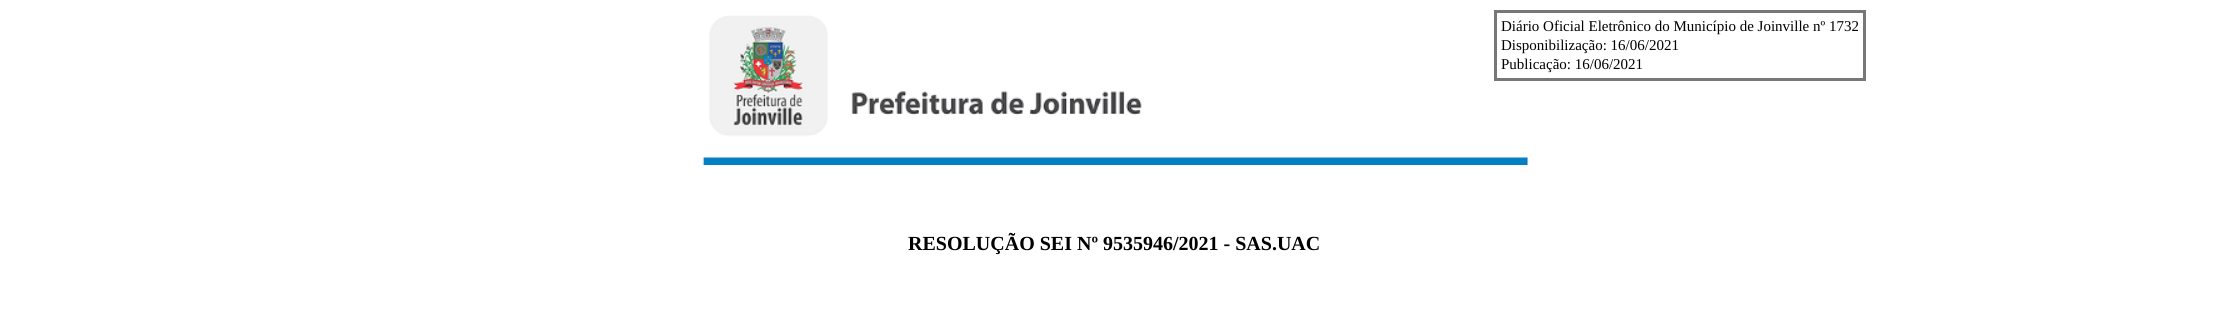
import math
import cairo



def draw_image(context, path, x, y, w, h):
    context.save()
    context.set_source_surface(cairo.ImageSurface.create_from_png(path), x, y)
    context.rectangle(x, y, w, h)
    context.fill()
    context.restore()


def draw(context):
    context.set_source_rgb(1, 1, 1)
    context.paint()
    draw_image(context, "images/1.png", 702, 15, 826, 150)
    context.rectangle(1495.5, 11.5, 369, 68)
    context.set_source_rgb(119 / 255, 119 / 255, 119 / 255)
    context.set_line_width(3)
    context.stroke()
    context.select_font_face("Liberation Serif")
    context.set_font_size(15)
    context.set_source_rgb(0, 0, 0)
    context.move_to(1501, 31)
    context.show_text("Diário Oficial Eletrônico do Município de Joinville nº 1732")
    context.move_to(1501, 50)
    context.show_text("Disponibilização: 16/06/2021")
    context.move_to(1501, 69)
    context.show_text("Publicação: 16/06/2021")
    context.select_font_face("Liberation Serif", cairo.FontSlant.NORMAL, cairo.FontWeight.BOLD)
    context.set_font_size(20)
    context.move_to(908, 250)
    context.show_text("RESOLUÇÃO SEI Nº 9535946/2021 - SAS.UAC")


surface = cairo.ImageSurface(cairo.Format.RGB24, 2228, 323)
context = cairo.Context(surface)
options = cairo.FontOptions()
options.set_hint_metrics(cairo.HintMetrics.OFF)
options.set_hint_style(cairo.HintStyle.NONE)
context.set_font_options(options)
context.set_miter_limit(4)
draw(context)
surface.write_to_png("out.png")
